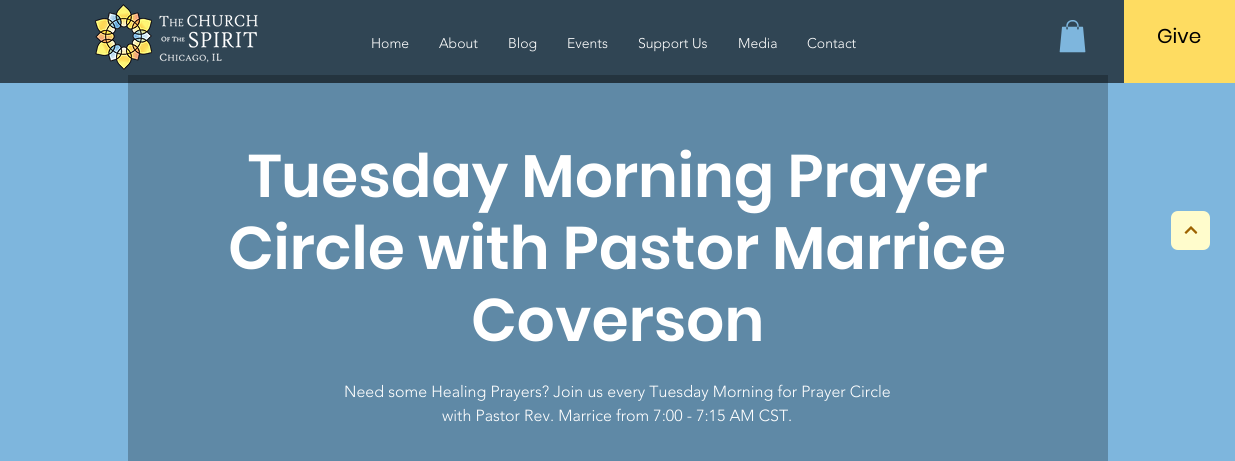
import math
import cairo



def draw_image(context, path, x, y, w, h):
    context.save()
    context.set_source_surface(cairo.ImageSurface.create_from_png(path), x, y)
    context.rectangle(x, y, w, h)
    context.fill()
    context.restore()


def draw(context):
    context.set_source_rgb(126 / 255, 182 / 255, 221 / 255)
    context.paint()
    context.set_source_rgb(48 / 255, 69 / 255, 84 / 255)
    context.rectangle(0, 0, 1124, 83)
    context.fill()
    draw_image(context, "images/1.png", 95, 4, 57, 66)
    draw_image(context, "images/2.png", 159, 14, 99, 49)
    draw_image(context, "images/3.png", 1059, 20, 27, 33)
    context.set_source_rgb(254 / 255, 220 / 255, 97 / 255)
    context.rectangle(1124, 0, 111, 83)
    context.fill()
    context.set_source_rgb(95 / 255, 137 / 255, 166 / 255)
    context.rectangle(128, 83, 980, 378)
    context.fill()
    context.set_source_rgb(36 / 255, 52 / 255, 63 / 255)
    context.rectangle(128, 75, 980, 8)
    context.fill()
    context.set_source_rgb(1, 252 / 255, 204 / 255)
    context.new_path()
    context.move_to(1171, 243)
    context.line_to(1171, 218)
    context.curve_to(1171, 214, 1174, 211, 1178, 211)
    context.line_to(1203, 211)
    context.curve_to(1207, 211, 1210, 214, 1210, 218)
    context.line_to(1210, 243)
    context.curve_to(1210, 247, 1207, 250, 1203, 250)
    context.line_to(1178, 250)
    context.curve_to(1174, 250, 1171, 247, 1171, 243)
    context.close_path()
    context.fill()
    draw_image(context, "images/4.png", 1184, 226, 14, 8)
    context.select_font_face("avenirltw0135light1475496 Light")
    context.set_font_size(14)
    context.set_source_rgb(1, 1, 1)
    context.move_to(371, 48)
    context.show_text("Home")
    context.move_to(439, 48)
    context.show_text("About")
    context.move_to(508, 48)
    context.show_text("Blog")
    context.move_to(567, 48)
    context.show_text("Events")
    context.move_to(638, 48)
    context.show_text("Support Us")
    context.move_to(738, 48)
    context.show_text("Media")
    context.move_to(807, 48)
    context.show_text("Contact")
    context.select_font_face("Poppins")
    context.set_font_size(20)
    context.set_source_rgb(0, 0, 0)
    context.move_to(1157, 43)
    context.show_text("Give")
    context.select_font_face("Poppins SemiBold")
    context.set_font_size(60)
    context.set_source_rgb(1, 1, 1)
    context.move_to(248, 197)
    context.show_text("Tuesday Morning Prayer")
    context.move_to(228, 269)
    context.show_text("Circle with Pastor Marrice")
    context.move_to(471, 341)
    context.show_text("Coverson")
    context.select_font_face("avenirltw0135light1475496 Light")
    context.set_font_size(16)
    context.move_to(344, 397)
    context.show_text("Need some Healing Prayers? Join us every Tuesday Morning for Prayer Circle")
    context.move_to(442, 421)
    context.show_text("with Pastor Rev. Marrice from 7:00 - 7:15 AM CST.")


surface = cairo.ImageSurface(cairo.Format.RGB24, 1235, 461)
context = cairo.Context(surface)
options = cairo.FontOptions()
options.set_hint_metrics(cairo.HintMetrics.OFF)
options.set_hint_style(cairo.HintStyle.NONE)
context.set_font_options(options)
context.set_miter_limit(4)
draw(context)
surface.write_to_png("out.png")
